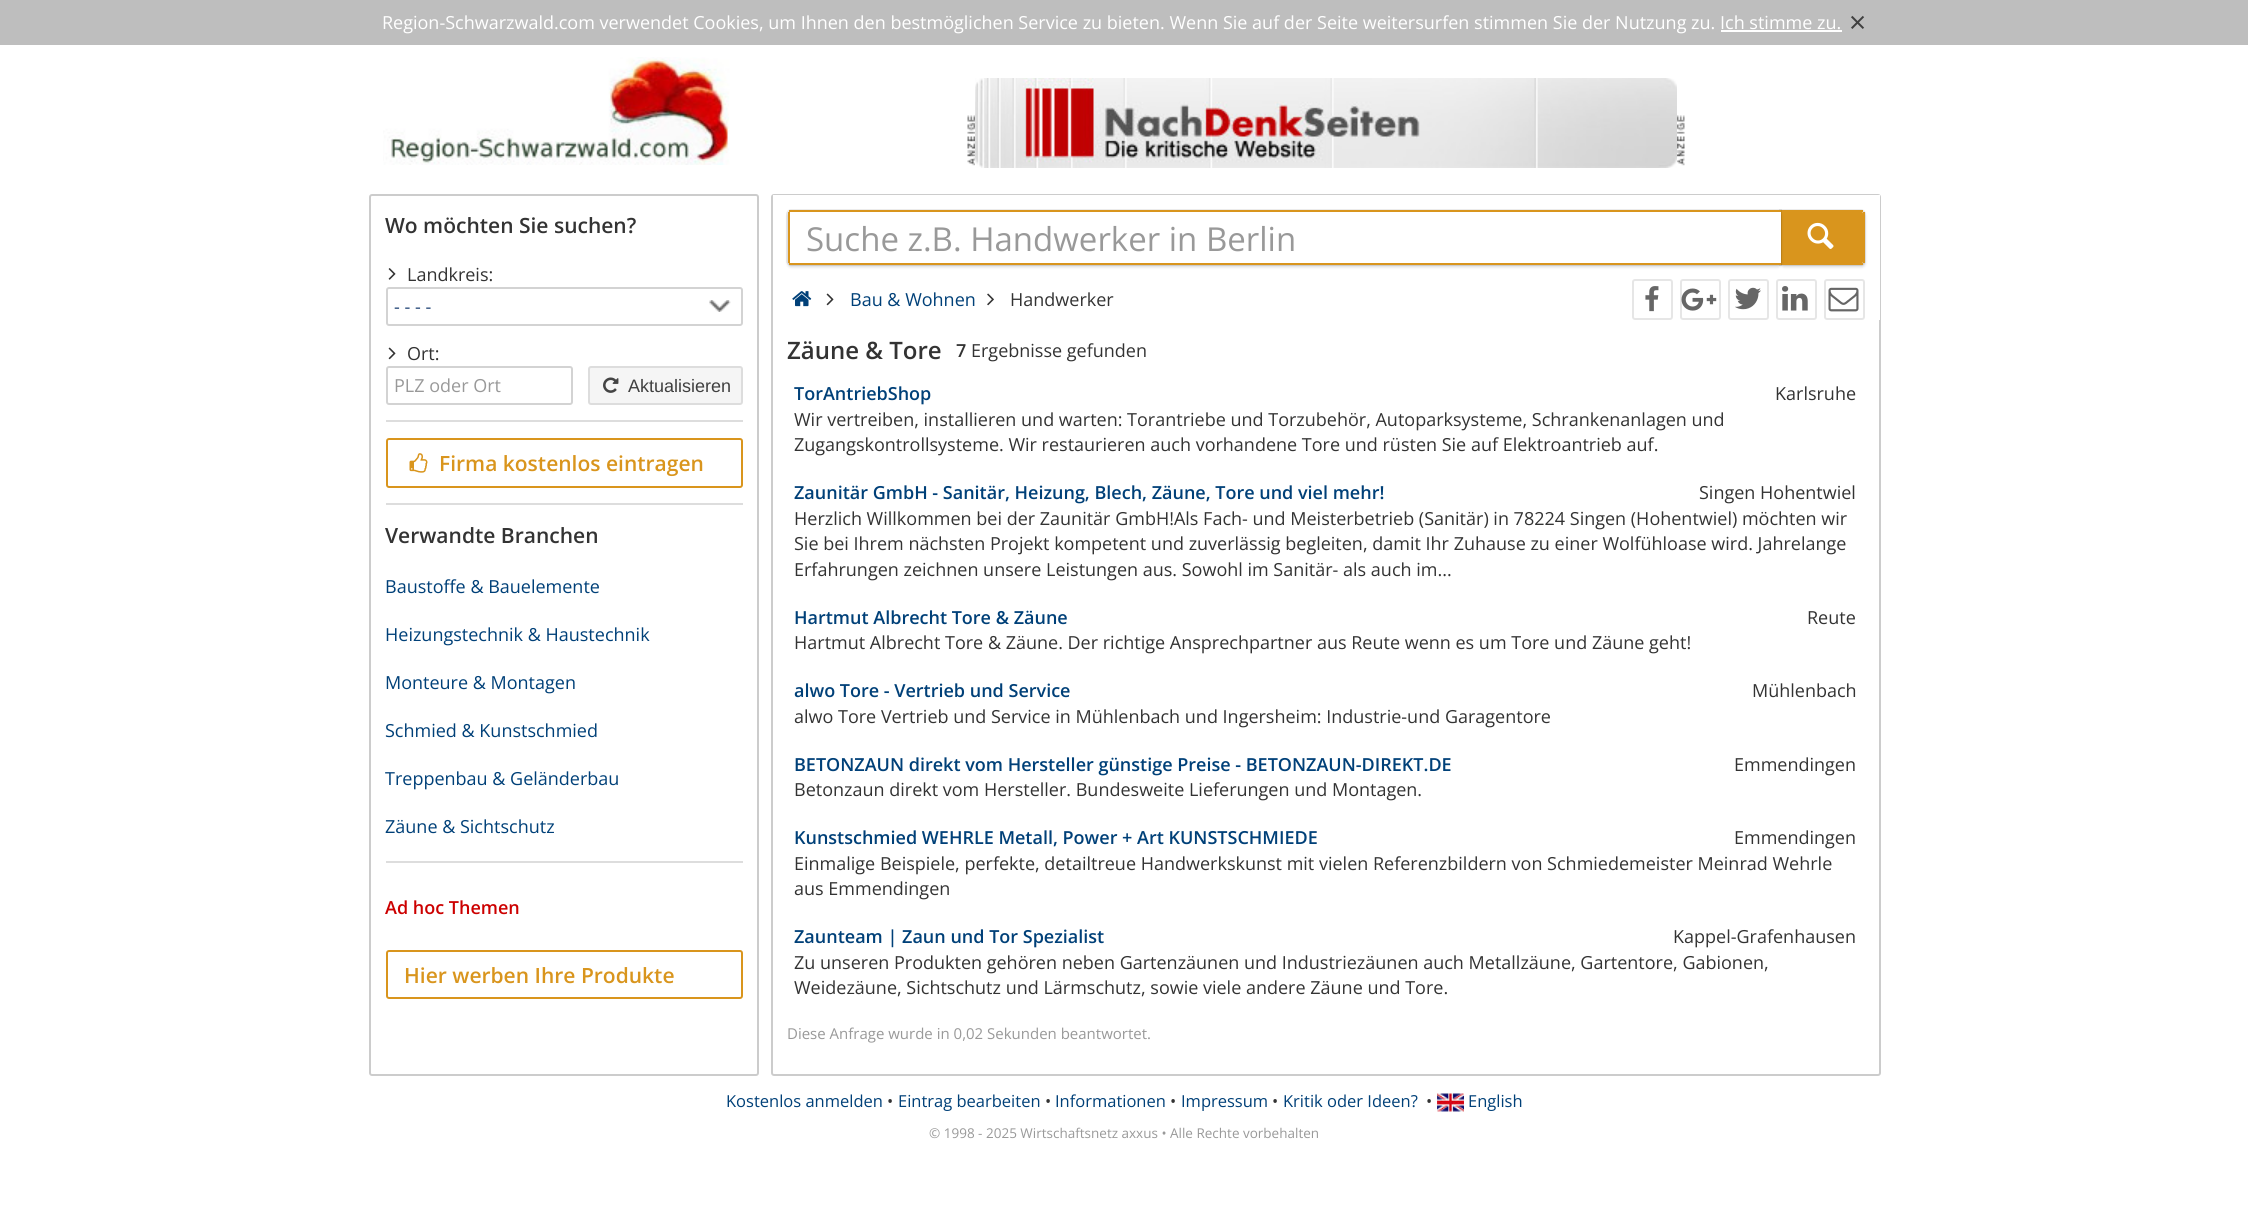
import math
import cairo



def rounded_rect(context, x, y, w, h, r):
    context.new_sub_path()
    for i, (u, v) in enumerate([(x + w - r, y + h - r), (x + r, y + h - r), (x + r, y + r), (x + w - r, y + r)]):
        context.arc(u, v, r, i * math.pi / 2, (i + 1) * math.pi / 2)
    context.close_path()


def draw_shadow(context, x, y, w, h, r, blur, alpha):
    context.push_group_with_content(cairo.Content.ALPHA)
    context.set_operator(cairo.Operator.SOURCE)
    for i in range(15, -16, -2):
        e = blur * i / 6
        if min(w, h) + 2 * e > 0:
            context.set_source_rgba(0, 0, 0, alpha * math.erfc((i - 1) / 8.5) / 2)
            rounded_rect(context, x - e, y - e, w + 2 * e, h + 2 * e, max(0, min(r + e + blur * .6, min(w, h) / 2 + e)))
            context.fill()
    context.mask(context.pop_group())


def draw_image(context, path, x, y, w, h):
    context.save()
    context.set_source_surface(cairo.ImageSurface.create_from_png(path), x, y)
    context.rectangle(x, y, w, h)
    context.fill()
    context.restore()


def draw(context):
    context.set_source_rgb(1, 1, 1)
    context.paint()
    context.set_source_rgb(190 / 255, 190 / 255, 190 / 255)
    context.rectangle(0, 0, 2248, 45)
    context.fill()
    context.set_source_rgb(1, 1, 1)
    context.rectangle(1721, 30, 121, 2)
    context.fill()
    draw_image(context, "images/1.png", 383, 57, 347, 108)
    draw_image(context, "images/2.png", 967, 115, 8, 51)
    draw_image(context, "images/3.png", 975, 78, 702, 90)
    draw_image(context, "images/4.png", 1677, 115, 8, 51)
    rounded_rect(context, 370, 195, 388, 880, 2)
    context.set_source_rgb(204 / 255, 204 / 255, 204 / 255)
    context.stroke()
    draw_image(context, "images/5.png", 388, 268, 8, 12)
    draw_image(context, "images/6.png", 709, 300, 22, 12)
    rounded_rect(context, 387, 288, 355, 37, 2)
    context.set_source_rgb(211 / 255, 211 / 255, 211 / 255)
    context.stroke()
    draw_image(context, "images/7.png", 388, 347, 8, 13)
    rounded_rect(context, 387, 367, 185, 37, 2)
    context.stroke()
    context.set_source_rgb(245 / 255, 245 / 255, 245 / 255)
    rounded_rect(context, 588, 366, 155, 39, 3)
    context.fill()
    rounded_rect(context, 589, 367, 153, 37, 2)
    context.set_source_rgba(0, 0, 0, 0.1)
    context.stroke()
    draw_image(context, "images/8.png", 603, 377, 16, 16)
    context.set_source_rgb(221 / 255, 221 / 255, 221 / 255)
    context.rectangle(386, 420, 357, 2)
    context.fill()
    rounded_rect(context, 387, 439, 355, 48, 2)
    context.set_source_rgb(217 / 255, 149 / 255, 29 / 255)
    context.stroke()
    draw_image(context, "images/9.png", 409, 453, 19, 20)
    context.set_source_rgb(221 / 255, 221 / 255, 221 / 255)
    context.rectangle(386, 503, 357, 2)
    context.fill()
    context.rectangle(386, 861, 357, 2)
    context.fill()
    rounded_rect(context, 387, 951, 355, 47, 2)
    context.set_source_rgb(217 / 255, 149 / 255, 29 / 255)
    context.stroke()
    rounded_rect(context, 772, 195, 1108, 880, 2)
    context.set_source_rgb(204 / 255, 204 / 255, 204 / 255)
    context.stroke()
    context.set_source_rgb(1, 1, 1)
    context.rectangle(773, 195, 1107, 84)
    context.fill()
    context.new_path()
    context.move_to(1780, 210)
    context.line_to(1861, 210)
    context.curve_to(1863, 210, 1865, 212, 1865, 214)
    context.line_to(1865, 261)
    context.curve_to(1865, 263, 1863, 265, 1861, 265)
    context.line_to(1780, 265)
    context.close_path()
    context.set_source_rgb(235 / 255, 235 / 255, 235 / 255)
    context.stroke()
    context.set_source_rgb(0, 0, 0)
    draw_shadow(context, 1781, 213, 84, 54, 3, 1.5, 0.16)
    context.set_source_rgb(217 / 255, 149 / 255, 29 / 255)
    context.new_path()
    context.move_to(1781, 212)
    context.line_to(1861.5, 212)
    context.curve_to(1862.5, 212, 1863, 212.5, 1863, 213.5)
    context.line_to(1863, 261.5)
    context.curve_to(1863, 262.5, 1862.5, 263, 1861.5, 263)
    context.line_to(1781, 263)
    context.close_path()
    context.fill()
    context.rectangle(1781, 210, 82, 2)
    context.fill()
    context.rectangle(1781, 263, 82, 2)
    context.fill()
    context.new_path()
    context.move_to(791, 210)
    context.line_to(1781, 210)
    context.line_to(1781, 265)
    context.line_to(791, 265)
    context.curve_to(789, 265, 787, 263, 787, 261)
    context.line_to(787, 214)
    context.curve_to(787, 212, 789, 210, 791, 210)
    context.close_path()
    context.set_source_rgba(0, 0, 0, 0.08)
    context.stroke()
    context.set_source_rgb(0, 0, 0)
    draw_shadow(context, 788, 213, 993, 54, 3, 1.5, 0.16)
    context.set_source_rgb(1, 1, 1)
    context.rectangle(790, 212, 991, 51)
    context.fill()
    context.set_source_rgb(217 / 255, 149 / 255, 29 / 255)
    context.rectangle(789, 210, 992, 2)
    context.fill()
    context.rectangle(789, 263, 992, 2)
    context.fill()
    context.rectangle(788, 212, 2, 51)
    context.fill()
    context.rectangle(1863, 212, 2, 51)
    context.fill()
    draw_image(context, "images/10.png", 1807, 222, 27, 27)
    context.set_source_rgb(1, 1, 1)
    context.rectangle(1879, 279, 1, 41)
    context.fill()
    draw_image(context, "images/11.png", 792, 291, 20, 16)
    draw_image(context, "images/7.png", 826, 293, 8, 13)
    draw_image(context, "images/12.png", 987, 293, 7, 13)
    rounded_rect(context, 1633, 280, 39, 39, 2)
    context.set_source_rgb(230 / 255, 230 / 255, 230 / 255)
    context.stroke()
    draw_image(context, "images/13.png", 1645, 286, 14, 26)
    rounded_rect(context, 1681, 280, 39, 39, 2)
    context.stroke()
    draw_image(context, "images/14.png", 1681, 288, 36, 23)
    rounded_rect(context, 1729, 280, 39, 39, 2)
    context.stroke()
    draw_image(context, "images/15.png", 1735, 287, 26, 23)
    rounded_rect(context, 1777, 280, 39, 39, 2)
    context.stroke()
    draw_image(context, "images/16.png", 1782, 286, 26, 25)
    rounded_rect(context, 1825, 280, 39, 39, 2)
    context.stroke()
    draw_image(context, "images/17.png", 1828, 287, 31, 25)
    draw_image(context, "images/18.png", 1437, 1093, 27, 19)
    context.select_font_face("Open Sans")
    context.set_font_size(18)
    context.set_source_rgb(1, 1, 1)
    context.move_to(382, 29)
    context.show_text("Region-Schwarzwald.com verwendet Cookies, um Ihnen den bestmöglichen Service zu bieten. Wenn Sie auf der Seite weitersurfen stimmen Sie der Nutzung zu.")
    context.move_to(1720, 29)
    context.show_text("Ich stimme zu.")
    context.set_font_size(30)
    context.set_source_rgb(64 / 255, 64 / 255, 64 / 255)
    context.move_to(1849, 33)
    context.show_text("×")
    context.select_font_face("Open Sans SemiBold")
    context.set_font_size(21)
    context.set_source_rgb(51 / 255, 51 / 255, 51 / 255)
    context.move_to(385, 233)
    context.show_text("Wo möchten Sie suchen?")
    context.select_font_face("Open Sans")
    context.set_font_size(18)
    context.move_to(407, 281)
    context.show_text("Landkreis:")
    context.set_source_rgb(32 / 255, 68 / 255, 117 / 255)
    context.move_to(394, 313)
    context.show_text("- - - -")
    context.set_source_rgb(51 / 255, 51 / 255, 51 / 255)
    context.move_to(407, 360)
    context.show_text("Ort:")
    context.set_source_rgb(153 / 255, 153 / 255, 153 / 255)
    context.move_to(394, 392)
    context.show_text("PLZ oder Ort")
    context.select_font_face("Liberation Sans")
    context.set_source_rgb(64 / 255, 64 / 255, 64 / 255)
    context.move_to(628, 392)
    context.show_text("Aktualisieren")
    context.select_font_face("Open Sans SemiBold")
    context.set_font_size(21)
    context.set_source_rgb(217 / 255, 149 / 255, 29 / 255)
    context.move_to(439, 471)
    context.show_text("Firma kostenlos eintragen")
    context.set_source_rgb(51 / 255, 51 / 255, 51 / 255)
    context.move_to(385, 543)
    context.show_text("Verwandte Branchen")
    context.select_font_face("Open Sans")
    context.set_font_size(18)
    context.set_source_rgb(0, 64 / 255, 120 / 255)
    context.move_to(385, 593)
    context.show_text("Baustoffe & Bauelemente")
    context.move_to(385, 641)
    context.show_text("Heizungstechnik & Haustechnik")
    context.move_to(385, 689)
    context.show_text("Monteure & Montagen")
    context.move_to(385, 737)
    context.show_text("Schmied & Kunstschmied")
    context.move_to(385, 785)
    context.show_text("Treppenbau & Geländerbau")
    context.move_to(385, 833)
    context.show_text("Zäune & Sichtschutz")
    context.select_font_face("Open Sans SemiBold")
    context.set_source_rgb(204 / 255, 0, 0)
    context.move_to(385, 914)
    context.show_text("Ad hoc Themen")
    context.set_font_size(21)
    context.set_source_rgb(217 / 255, 149 / 255, 29 / 255)
    context.move_to(404, 983)
    context.show_text("Hier werben Ihre Produkte")
    context.select_font_face("Open Sans")
    context.set_font_size(33)
    context.set_source_rgb(153 / 255, 153 / 255, 153 / 255)
    context.move_to(806, 251)
    context.show_text("Suche z.B. Handwerker in Berlin")
    context.set_font_size(18)
    context.set_source_rgb(0, 64 / 255, 120 / 255)
    context.move_to(850, 306)
    context.show_text("Bau & Wohnen")
    context.set_source_rgb(51 / 255, 51 / 255, 51 / 255)
    context.move_to(1010, 306)
    context.show_text("Handwerker")
    context.select_font_face("Open Sans SemiBold")
    context.set_font_size(24)
    context.move_to(787, 359)
    context.show_text("Zäune & Tore")
    context.set_font_size(18)
    context.move_to(956, 357)
    context.show_text("7")
    context.select_font_face("Open Sans")
    context.move_to(971, 357)
    context.show_text("Ergebnisse gefunden")
    context.select_font_face("Open Sans SemiBold")
    context.set_source_rgb(0, 64 / 255, 120 / 255)
    context.move_to(794, 400)
    context.show_text("TorAntriebShop")
    context.select_font_face("Open Sans")
    context.set_source_rgb(51 / 255, 51 / 255, 51 / 255)
    context.move_to(1775, 400)
    context.show_text("Karlsruhe")
    context.move_to(794, 426)
    context.show_text("Wir vertreiben, installieren und warten: Torantriebe und Torzubehör, Autoparksysteme, Schrankenanlagen und")
    context.move_to(794, 451)
    context.show_text("Zugangskontrollsysteme. Wir restaurieren auch vorhandene Tore und rüsten Sie auf Elektroantrieb auf.")
    context.select_font_face("Open Sans SemiBold")
    context.set_source_rgb(0, 64 / 255, 120 / 255)
    context.move_to(794, 499)
    context.show_text("Zaunitär GmbH - Sanitär, Heizung, Blech, Zäune, Tore und viel mehr!")
    context.select_font_face("Open Sans")
    context.set_source_rgb(51 / 255, 51 / 255, 51 / 255)
    context.move_to(1699, 499)
    context.show_text("Singen Hohentwiel")
    context.move_to(794, 525)
    context.show_text("Herzlich Willkommen bei der Zaunitär GmbH!Als Fach- und Meisterbetrieb (Sanitär) in 78224 Singen (Hohentwiel) möchten wir")
    context.move_to(794, 550)
    context.show_text("Sie bei Ihrem nächsten Projekt kompetent und zuverlässig begleiten, damit Ihr Zuhause zu einer Wolfühloase wird. Jahrelange")
    context.move_to(794, 576)
    context.show_text("Erfahrungen zeichnen unsere Leistungen aus. Sowohl im Sanitär- als auch im...")
    context.select_font_face("Open Sans SemiBold")
    context.set_source_rgb(0, 64 / 255, 120 / 255)
    context.move_to(794, 624)
    context.show_text("Hartmut Albrecht Tore & Zäune")
    context.select_font_face("Open Sans")
    context.set_source_rgb(51 / 255, 51 / 255, 51 / 255)
    context.move_to(1807, 624)
    context.show_text("Reute")
    context.move_to(794, 649)
    context.show_text("Hartmut Albrecht Tore & Zäune. Der richtige Ansprechpartner aus Reute wenn es um Tore und Zäune geht!")
    context.select_font_face("Open Sans SemiBold")
    context.set_source_rgb(0, 64 / 255, 120 / 255)
    context.move_to(794, 697)
    context.show_text("alwo Tore - Vertrieb und Service")
    context.select_font_face("Open Sans")
    context.set_source_rgb(51 / 255, 51 / 255, 51 / 255)
    context.move_to(1752, 697)
    context.show_text("Mühlenbach")
    context.move_to(794, 723)
    context.show_text("alwo Tore Vertrieb und Service in Mühlenbach und Ingersheim: Industrie-und Garagentore")
    context.select_font_face("Open Sans SemiBold")
    context.set_source_rgb(0, 64 / 255, 120 / 255)
    context.move_to(794, 771)
    context.show_text("BETONZAUN direkt vom Hersteller günstige Preise - BETONZAUN-DIREKT.DE")
    context.select_font_face("Open Sans")
    context.set_source_rgb(51 / 255, 51 / 255, 51 / 255)
    context.move_to(1734, 771)
    context.show_text("Emmendingen")
    context.move_to(794, 796)
    context.show_text("Betonzaun direkt vom Hersteller. Bundesweite Lieferungen und Montagen.")
    context.select_font_face("Open Sans SemiBold")
    context.set_source_rgb(0, 64 / 255, 120 / 255)
    context.move_to(794, 844)
    context.show_text("Kunstschmied WEHRLE Metall, Power + Art KUNSTSCHMIEDE")
    context.select_font_face("Open Sans")
    context.set_source_rgb(51 / 255, 51 / 255, 51 / 255)
    context.move_to(1734, 844)
    context.show_text("Emmendingen")
    context.move_to(794, 870)
    context.show_text("Einmalige Beispiele, perfekte, detailtreue Handwerkskunst mit vielen Referenzbildern von Schmiedemeister Meinrad Wehrle")
    context.move_to(794, 895)
    context.show_text("aus Emmendingen")
    context.select_font_face("Open Sans SemiBold")
    context.set_source_rgb(0, 64 / 255, 120 / 255)
    context.move_to(794, 943)
    context.show_text("Zaunteam | Zaun und Tor Spezialist")
    context.select_font_face("Open Sans")
    context.set_source_rgb(51 / 255, 51 / 255, 51 / 255)
    context.move_to(1673, 943)
    context.show_text("Kappel-Grafenhausen")
    context.move_to(794, 969)
    context.show_text("Zu unseren Produkten gehören neben Gartenzäunen und Industriezäunen auch Metallzäune, Gartentore, Gabionen,")
    context.move_to(794, 994)
    context.show_text("Weidezäune, Sichtschutz und Lärmschutz, sowie viele andere Zäune und Tore.")
    context.set_font_size(15)
    context.set_source_rgb(153 / 255, 153 / 255, 153 / 255)
    context.move_to(787, 1039)
    context.show_text("Diese Anfrage wurde in 0,02 Sekunden beantwortet.")
    context.set_font_size(16.5)
    context.set_source_rgb(0, 64 / 255, 120 / 255)
    context.move_to(726, 1107)
    context.show_text("Kostenlos anmelden")
    context.set_source_rgb(51 / 255, 51 / 255, 51 / 255)
    context.move_to(887, 1107)
    context.show_text("•")
    context.set_source_rgb(0, 64 / 255, 120 / 255)
    context.move_to(898, 1107)
    context.show_text("Eintrag bearbeiten")
    context.set_source_rgb(51 / 255, 51 / 255, 51 / 255)
    context.move_to(1045, 1107)
    context.show_text("•")
    context.set_source_rgb(0, 64 / 255, 120 / 255)
    context.move_to(1055, 1107)
    context.show_text("Informationen")
    context.set_source_rgb(51 / 255, 51 / 255, 51 / 255)
    context.move_to(1170, 1107)
    context.show_text("•")
    context.set_source_rgb(0, 64 / 255, 120 / 255)
    context.move_to(1181, 1107)
    context.show_text("Impressum")
    context.set_source_rgb(51 / 255, 51 / 255, 51 / 255)
    context.move_to(1272, 1107)
    context.show_text("•")
    context.set_source_rgb(0, 64 / 255, 120 / 255)
    context.move_to(1283, 1107)
    context.show_text("Kritik oder Ideen?")
    context.set_source_rgb(51 / 255, 51 / 255, 51 / 255)
    context.move_to(1426, 1107)
    context.show_text("•")
    context.set_source_rgb(0, 64 / 255, 120 / 255)
    context.move_to(1468, 1107)
    context.show_text("English")
    context.set_font_size(13.5)
    context.set_source_rgb(153 / 255, 153 / 255, 153 / 255)
    context.move_to(929, 1138)
    context.show_text("© 1998 - 2025 Wirtschaftsnetz axxus • Alle Rechte vorbehalten")


surface = cairo.ImageSurface(cairo.Format.RGB24, 2248, 1227)
context = cairo.Context(surface)
options = cairo.FontOptions()
options.set_hint_metrics(cairo.HintMetrics.OFF)
options.set_hint_style(cairo.HintStyle.NONE)
context.set_font_options(options)
context.set_miter_limit(4)
draw(context)
surface.write_to_png("out.png")
